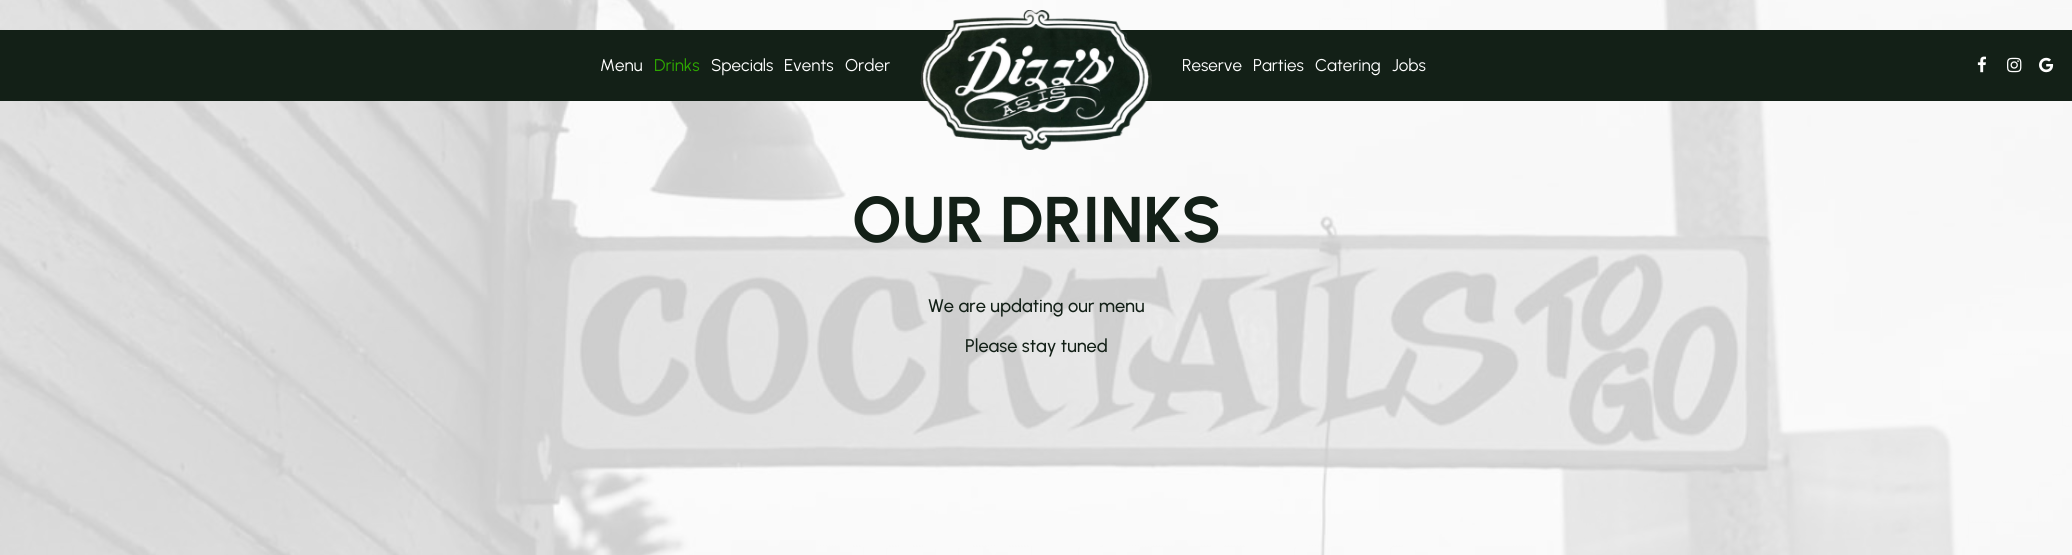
import math
import cairo



def draw_image(context, path, x, y, w, h):
    context.save()
    context.set_source_surface(cairo.ImageSurface.create_from_png(path), x, y)
    context.rectangle(x, y, w, h)
    context.fill()
    context.restore()


def draw(context):
    context.set_source_rgb(1, 1, 1)
    context.paint()
    draw_image(context, "images/1.png", 0, 0, 2072, 555)
    context.set_source_rgb(19 / 255, 32 / 255, 23 / 255)
    context.rectangle(0, 30, 2072, 71)
    context.fill()
    draw_image(context, "images/2.png", 920, 10, 232, 140)
    draw_image(context, "images/3.png", 1977, 56, 9, 17)
    draw_image(context, "images/4.png", 2007, 57, 15, 16)
    draw_image(context, "images/5.png", 2039, 57, 15, 16)
    context.select_font_face("Urbanist")
    context.set_font_size(17)
    context.set_source_rgb(1, 1, 1)
    context.move_to(600, 71)
    context.show_text("Menu")
    context.set_source_rgb(45 / 255, 168 / 255, 0)
    context.move_to(654, 71)
    context.show_text("Drinks")
    context.set_source_rgb(1, 1, 1)
    context.move_to(711, 71)
    context.show_text("Specials")
    context.move_to(784, 71)
    context.show_text("Events")
    context.move_to(845, 71)
    context.show_text("Order")
    context.move_to(1182, 71)
    context.show_text("Reserve")
    context.move_to(1253, 71)
    context.show_text("Parties")
    context.move_to(1315, 71)
    context.show_text("Catering")
    context.move_to(1392, 71)
    context.show_text("Jobs")
    context.select_font_face("Urbanist", cairo.FontSlant.NORMAL, cairo.FontWeight.BOLD)
    context.set_font_size(64.5)
    context.set_source_rgb(19 / 255, 32 / 255, 23 / 255)
    context.move_to(852, 242)
    context.show_text("OUR DRINKS")
    context.select_font_face("Urbanist Medium")
    context.set_font_size(18.25)
    context.move_to(928, 312)
    context.show_text("We are updating our menu")
    context.move_to(965, 352)
    context.show_text("Please stay tuned")


surface = cairo.ImageSurface(cairo.Format.RGB24, 2072, 555)
context = cairo.Context(surface)
options = cairo.FontOptions()
options.set_hint_metrics(cairo.HintMetrics.OFF)
options.set_hint_style(cairo.HintStyle.NONE)
context.set_font_options(options)
context.set_miter_limit(4)
draw(context)
surface.write_to_png("out.png")
